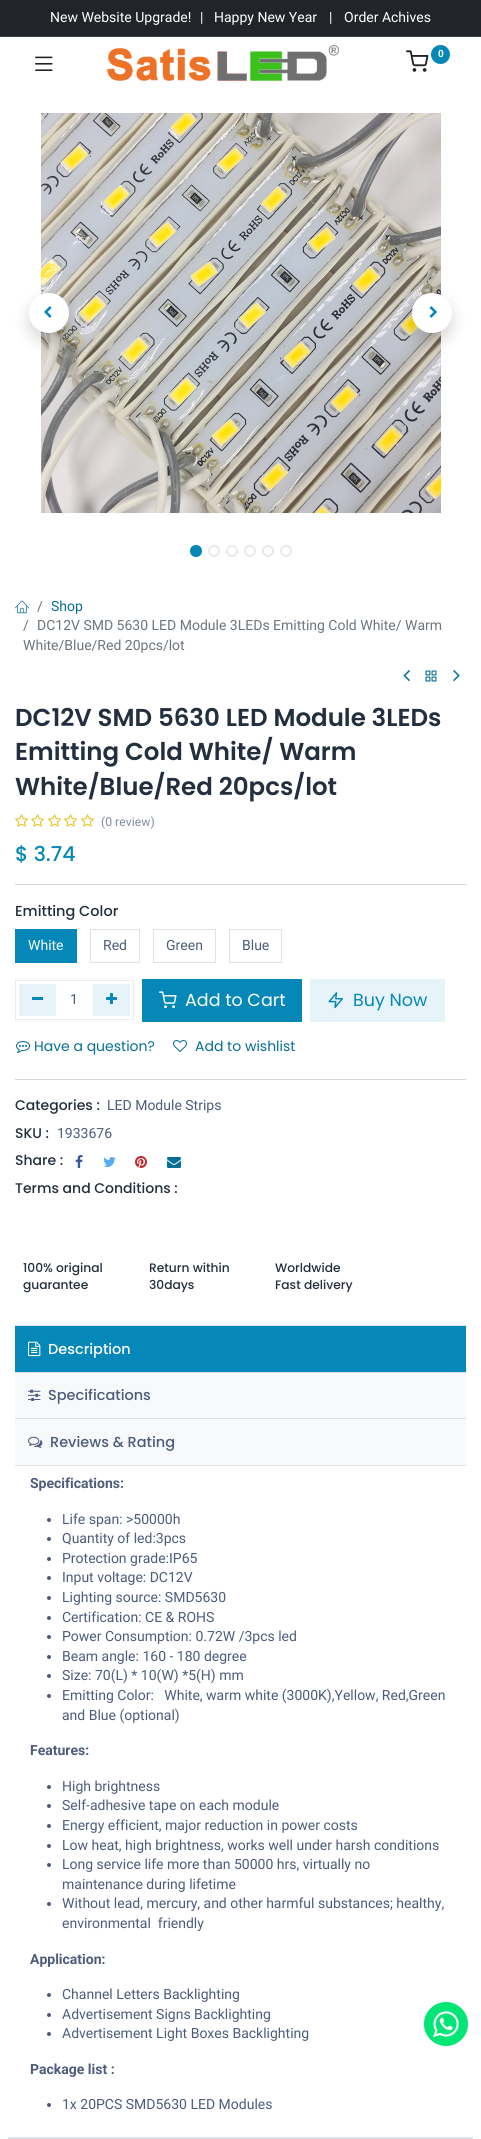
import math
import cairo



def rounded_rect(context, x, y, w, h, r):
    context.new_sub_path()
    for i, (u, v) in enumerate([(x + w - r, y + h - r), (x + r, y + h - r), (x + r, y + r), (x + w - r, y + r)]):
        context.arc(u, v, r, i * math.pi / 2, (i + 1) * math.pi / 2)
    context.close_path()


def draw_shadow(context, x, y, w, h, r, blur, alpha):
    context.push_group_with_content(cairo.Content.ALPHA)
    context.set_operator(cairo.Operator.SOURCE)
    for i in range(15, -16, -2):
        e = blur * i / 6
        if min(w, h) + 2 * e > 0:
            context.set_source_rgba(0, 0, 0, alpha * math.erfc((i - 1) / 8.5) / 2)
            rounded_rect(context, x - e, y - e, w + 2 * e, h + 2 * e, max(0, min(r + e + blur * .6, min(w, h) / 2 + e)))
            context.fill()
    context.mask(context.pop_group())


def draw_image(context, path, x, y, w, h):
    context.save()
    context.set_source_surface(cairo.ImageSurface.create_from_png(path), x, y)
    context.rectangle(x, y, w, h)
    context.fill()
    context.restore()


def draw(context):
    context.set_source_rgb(1, 1, 1)
    context.paint()
    context.set_source_rgb(33 / 255, 37 / 255, 41 / 255)
    context.rectangle(0, 0, 481, 36)
    context.fill()
    context.set_source_rgb(60 / 255, 63 / 255, 67 / 255)
    context.rectangle(0, 36, 481, 1)
    context.fill()
    draw_image(context, "images/1.png", 106, 44, 233, 37)
    draw_image(context, "images/2.png", 406, 50, 23, 22)
    context.set_source_rgb(5 / 255, 135 / 255, 184 / 255)
    context.arc(440.5, 54.5, 9.5, 0, 2 * math.pi)
    context.fill()
    draw_image(context, "images/3.png", 35, 56, 18, 15)
    draw_image(context, "images/4.png", 41, 113, 400, 400)
    context.set_source_rgb(0, 0, 0)
    draw_shadow(context, 29, 301, 40, 40, 20, 8, 0.15)
    context.set_source_rgb(1, 1, 1)
    context.arc(49, 313, 20, 0, 2 * math.pi)
    context.fill()
    draw_image(context, "images/5.png", 44, 306, 8, 12)
    context.set_source_rgb(0, 0, 0)
    draw_shadow(context, 412, 301, 40, 40, 20, 8, 0.15)
    context.set_source_rgb(1, 1, 1)
    context.arc(432, 313, 20, 0, 2 * math.pi)
    context.fill()
    draw_image(context, "images/6.png", 429, 306, 8, 12)
    context.set_source_rgb(5 / 255, 135 / 255, 184 / 255)
    context.arc(196, 551, 5, 0, 2 * math.pi)
    context.fill_preserve()
    context.stroke()
    context.arc(214, 551, 5, 0, 2 * math.pi)
    context.set_source_rgb(231 / 255, 234 / 255, 237 / 255)
    context.stroke()
    context.arc(232, 551, 5, 0, 2 * math.pi)
    context.stroke()
    context.arc(250, 551, 5, 0, 2 * math.pi)
    context.stroke()
    context.arc(268, 551, 5, 0, 2 * math.pi)
    context.stroke()
    context.arc(286, 551, 5, 0, 2 * math.pi)
    context.stroke()
    draw_image(context, "images/7.png", 15, 600, 14, 14)
    draw_image(context, "images/8.png", 403, 670, 7, 12)
    draw_image(context, "images/9.png", 425, 670, 12, 12)
    draw_image(context, "images/10.png", 453, 670, 7, 12)
    draw_image(context, "images/11.png", 15, 814, 13, 13)
    draw_image(context, "images/11.png", 31, 814, 13, 13)
    draw_image(context, "images/11.png", 48, 814, 13, 13)
    draw_image(context, "images/11.png", 64, 814, 13, 13)
    draw_image(context, "images/11.png", 81, 814, 13, 13)
    context.set_source_rgb(211 / 255, 214 / 255, 222 / 255)
    context.rectangle(15, 884, 451, 1)
    context.fill()
    context.set_source_rgb(5 / 255, 135 / 255, 184 / 255)
    context.rectangle(15, 929, 62, 34)
    context.fill()
    context.rectangle(90.5, 929.5, 49, 33)
    context.set_source_rgb(222 / 255, 226 / 255, 230 / 255)
    context.set_line_width(1)
    context.stroke()
    context.rectangle(153.5, 929.5, 62, 33)
    context.stroke()
    context.rectangle(229.5, 929.5, 52, 33)
    context.stroke()
    context.rectangle(15.5, 980.5, 118, 39)
    context.set_source_rgb(233 / 255, 236 / 255, 239 / 255)
    context.stroke()
    context.set_source_rgb(230 / 255, 243 / 255, 248 / 255)
    context.rectangle(19, 984, 37, 32)
    context.fill()
    context.set_source_rgb(5 / 255, 135 / 255, 184 / 255)
    context.rectangle(32, 997, 11, 3)
    context.fill()
    context.set_source_rgb(230 / 255, 243 / 255, 248 / 255)
    context.rectangle(93, 984, 37, 32)
    context.fill()
    draw_image(context, "images/12.png", 106, 993, 11, 11)
    context.set_source_rgb(5 / 255, 135 / 255, 184 / 255)
    context.rectangle(142, 979, 160, 43)
    context.fill()
    draw_image(context, "images/13.png", 159, 991, 18, 18)
    context.set_source_rgb(230 / 255, 243 / 255, 248 / 255)
    context.rectangle(310, 979, 135, 43)
    context.fill()
    draw_image(context, "images/14.png", 328, 992, 15, 17)
    draw_image(context, "images/15.png", 16, 1041, 14, 12)
    draw_image(context, "images/16.png", 173, 1040, 14, 12)
    context.set_source_rgb(211 / 255, 214 / 255, 222 / 255)
    context.rectangle(15, 1079, 451, 1)
    context.fill()
    draw_image(context, "images/17.png", 75, 1155, 8, 13)
    draw_image(context, "images/18.png", 103, 1157, 13, 10)
    draw_image(context, "images/19.png", 135, 1156, 12, 12)
    draw_image(context, "images/20.png", 167, 1157, 14, 11)
    context.set_source_rgb(248 / 255, 249 / 255, 250 / 255)
    context.rectangle(15, 1373, 451, 92)
    context.fill()
    context.set_source_rgb(222 / 255, 226 / 255, 230 / 255)
    context.rectangle(15, 1325, 451, 1)
    context.fill()
    context.set_source_rgb(5 / 255, 135 / 255, 184 / 255)
    context.rectangle(15, 1326, 451, 46)
    context.fill()
    draw_image(context, "images/21.png", 28, 1341, 13, 16)
    context.set_source_rgb(222 / 255, 226 / 255, 230 / 255)
    context.rectangle(15, 1372, 451, 1)
    context.fill()
    draw_image(context, "images/22.png", 28, 1389, 13, 12)
    context.rectangle(15, 1418, 451, 1)
    context.fill()
    context.rectangle(15, 1465, 451, 1)
    context.fill()
    draw_image(context, "images/23.png", 28, 1436, 15, 12)
    context.set_source_rgb(77 / 255, 91 / 255, 124 / 255)
    context.arc(49, 1520, 2, 0, 2 * math.pi)
    context.fill()
    context.arc(49, 1539, 2, 0, 2 * math.pi)
    context.fill()
    context.arc(49, 1559, 2, 0, 2 * math.pi)
    context.fill()
    context.arc(49, 1578, 2, 0, 2 * math.pi)
    context.fill()
    context.arc(49, 1598, 2, 0, 2 * math.pi)
    context.fill()
    context.arc(49, 1618, 2, 0, 2 * math.pi)
    context.fill()
    context.arc(49, 1637, 2, 0, 2 * math.pi)
    context.fill()
    context.arc(49, 1657, 2, 0, 2 * math.pi)
    context.fill()
    context.arc(49, 1676, 2, 0, 2 * math.pi)
    context.fill()
    context.arc(49, 1696, 2, 0, 2 * math.pi)
    context.fill()
    context.arc(49, 1787, 2, 0, 2 * math.pi)
    context.fill()
    context.arc(49, 1806, 2, 0, 2 * math.pi)
    context.fill()
    context.arc(49, 1826, 2, 0, 2 * math.pi)
    context.fill()
    context.arc(49, 1846, 2, 0, 2 * math.pi)
    context.fill()
    context.arc(49, 1865, 2, 0, 2 * math.pi)
    context.fill()
    context.arc(49, 1904, 2, 0, 2 * math.pi)
    context.fill()
    context.arc(49, 1995, 2, 0, 2 * math.pi)
    context.fill()
    context.arc(49, 2015, 2, 0, 2 * math.pi)
    context.fill()
    context.arc(49, 2034, 2, 0, 2 * math.pi)
    context.fill()
    context.arc(49, 2105, 2, 0, 2 * math.pi)
    context.fill()
    context.set_source_rgb(222 / 255, 226 / 255, 230 / 255)
    context.rectangle(8, 2137, 465, 2)
    context.fill()
    context.set_source_rgb(1 / 255, 230 / 255, 117 / 255)
    context.arc(446, 2024, 23.5, 0, 2 * math.pi)
    context.fill_preserve()
    context.set_source_rgb(1, 1, 1)
    context.set_line_width(3)
    context.stroke()
    draw_image(context, "images/24.png", 433, 2011, 26, 27)
    context.select_font_face("Roboto")
    context.set_font_size(14)
    context.move_to(50, 22)
    context.show_text("New Website Upgrade!")
    context.move_to(200, 22)
    context.show_text("|")
    context.move_to(214, 22)
    context.show_text("Happy New Year")
    context.move_to(329, 22)
    context.show_text("|")
    context.move_to(344, 22)
    context.show_text("Order Achives")
    context.select_font_face("Roboto", cairo.FontSlant.NORMAL, cairo.FontWeight.BOLD)
    context.set_font_size(10)
    context.move_to(438, 57)
    context.show_text("0")
    context.select_font_face("Roboto")
    context.set_font_size(14)
    context.set_source_rgb(108 / 255, 117 / 255, 125 / 255)
    context.move_to(37, 611)
    context.show_text("/")
    context.set_source_rgb(4 / 255, 110 / 255, 149 / 255)
    context.move_to(51, 611)
    context.show_text("Shop")
    context.set_source_rgb(108 / 255, 117 / 255, 125 / 255)
    context.move_to(23, 630)
    context.show_text("/")
    context.move_to(37, 630)
    context.show_text("DC12V SMD 5630 LED Module 3LEDs Emitting Cold White/ Warm")
    context.move_to(23, 650)
    context.show_text("White/Blue/Red 20pcs/lot")
    context.select_font_face("Poppins SemiBold")
    context.set_font_size(24.5)
    context.set_source_rgb(35 / 255, 47 / 255, 62 / 255)
    context.move_to(15, 726)
    context.show_text("DC12V SMD 5630 LED Module 3LEDs")
    context.move_to(15, 760)
    context.show_text("Emitting Cold White/ Warm")
    context.move_to(15, 795)
    context.show_text("White/Blue/Red 20pcs/lot")
    context.select_font_face("Roboto")
    context.set_font_size(12.25)
    context.set_source_rgb(130 / 255, 140 / 255, 163 / 255)
    context.move_to(101, 826)
    context.show_text("(0 review)")
    context.select_font_face("Poppins Medium")
    context.set_font_size(20.5)
    context.set_source_rgb(5 / 255, 135 / 255, 184 / 255)
    context.move_to(15, 861)
    context.show_text("$ 3.74")
    context.set_font_size(14.5)
    context.set_source_rgb(35 / 255, 47 / 255, 62 / 255)
    context.move_to(15, 916)
    context.show_text("Emitting Color")
    context.select_font_face("Roboto")
    context.set_font_size(14)
    context.set_source_rgb(1, 1, 1)
    context.move_to(28, 950)
    context.show_text("White")
    context.set_source_rgb(77 / 255, 91 / 255, 124 / 255)
    context.move_to(103, 950)
    context.show_text("Red")
    context.move_to(166, 950)
    context.show_text("Green")
    context.move_to(242, 950)
    context.show_text("Blue")
    context.move_to(70, 1004)
    context.show_text("1")
    context.select_font_face("Poppins")
    context.set_font_size(17.5)
    context.set_source_rgb(1, 1, 1)
    context.move_to(185, 1006)
    context.show_text("Add to Cart")
    context.set_source_rgb(5 / 255, 135 / 255, 184 / 255)
    context.move_to(353, 1006)
    context.show_text("Buy Now")
    context.set_font_size(14)
    context.set_source_rgb(4 / 255, 110 / 255, 149 / 255)
    context.move_to(34, 1051)
    context.show_text("Have a question?")
    context.move_to(195, 1051)
    context.show_text("Add to wishlist")
    context.select_font_face("Poppins Medium")
    context.set_source_rgb(35 / 255, 47 / 255, 62 / 255)
    context.move_to(15, 1110)
    context.show_text("Categories :")
    context.select_font_face("Roboto")
    context.set_source_rgb(77 / 255, 91 / 255, 124 / 255)
    context.move_to(107, 1110)
    context.show_text("LED Module Strips")
    context.select_font_face("Poppins Medium")
    context.set_source_rgb(35 / 255, 47 / 255, 62 / 255)
    context.move_to(15, 1138)
    context.show_text("SKU :")
    context.select_font_face("Roboto")
    context.set_source_rgb(77 / 255, 91 / 255, 124 / 255)
    context.move_to(57, 1138)
    context.show_text("1933676")
    context.select_font_face("Poppins Medium")
    context.set_source_rgb(35 / 255, 47 / 255, 62 / 255)
    context.move_to(15, 1165)
    context.show_text("Share :")
    context.move_to(15, 1193)
    context.show_text("Terms and Conditions :")
    context.set_font_size(12.25)
    context.move_to(23, 1272)
    context.show_text("100% original")
    context.move_to(23, 1289)
    context.show_text("guarantee")
    context.move_to(149, 1272)
    context.show_text("Return within")
    context.move_to(149, 1289)
    context.show_text("30days")
    context.move_to(275, 1272)
    context.show_text("Worldwide")
    context.move_to(275, 1289)
    context.show_text("Fast delivery")
    context.set_font_size(14.5)
    context.set_source_rgb(1, 1, 1)
    context.move_to(48, 1354)
    context.show_text("Description")
    context.set_source_rgb(77 / 255, 91 / 255, 124 / 255)
    context.move_to(48, 1400)
    context.show_text("Specifications")
    context.move_to(50, 1447)
    context.show_text("Reviews & Rating")
    context.select_font_face("Roboto", cairo.FontSlant.NORMAL, cairo.FontWeight.BOLD)
    context.set_font_size(14)
    context.move_to(30, 1488)
    context.show_text("Specifications:")
    context.select_font_face("Roboto")
    context.move_to(62, 1524)
    context.show_text("Life span: >50000h")
    context.move_to(62, 1543)
    context.show_text("Quantity of led:3pcs")
    context.move_to(62, 1563)
    context.show_text("Protection grade:IP65")
    context.move_to(62, 1582)
    context.show_text("Input voltage: DC12V")
    context.move_to(62, 1602)
    context.show_text("Lighting source: SMD5630")
    context.move_to(62, 1622)
    context.show_text("Certification: CE & ROHS")
    context.move_to(62, 1641)
    context.show_text("Power Consumption: 0.72W /3pcs led")
    context.move_to(62, 1661)
    context.show_text("Beam angle: 160 - 180 degree")
    context.move_to(62, 1680)
    context.show_text("Size: 70(L) * 10(W) *5(H) mm")
    context.move_to(62, 1700)
    context.show_text("Emitting Color:   White, warm white (3000K),Yellow, Red,Green")
    context.move_to(62, 1720)
    context.show_text("and Blue (optional)")
    context.select_font_face("Roboto", cairo.FontSlant.NORMAL, cairo.FontWeight.BOLD)
    context.move_to(30, 1755)
    context.show_text("Features:")
    context.select_font_face("Roboto")
    context.move_to(62, 1791)
    context.show_text("High brightness")
    context.move_to(62, 1810)
    context.show_text("Self-adhesive tape on each module")
    context.move_to(62, 1830)
    context.show_text("Energy efficient, major reduction in power costs")
    context.move_to(62, 1850)
    context.show_text("Low heat, high brightness, works well under harsh conditions")
    context.move_to(62, 1869)
    context.show_text("Long service life more than 50000 hrs, virtually no")
    context.move_to(62, 1889)
    context.show_text("maintenance during lifetime")
    context.move_to(62, 1908)
    context.show_text("Without lead, mercury, and other harmful substances; healthy,")
    context.move_to(62, 1928)
    context.show_text("environmental  friendly")
    context.select_font_face("Roboto", cairo.FontSlant.NORMAL, cairo.FontWeight.BOLD)
    context.move_to(30, 1964)
    context.show_text("Application:")
    context.select_font_face("Roboto")
    context.move_to(62, 1999)
    context.show_text("Channel Letters Backlighting")
    context.move_to(62, 2019)
    context.show_text("Advertisement Signs Backlighting")
    context.move_to(62, 2038)
    context.show_text("Advertisement Light Boxes Backlighting")
    context.select_font_face("Roboto", cairo.FontSlant.NORMAL, cairo.FontWeight.BOLD)
    context.move_to(30, 2074)
    context.show_text("Package list :")
    context.select_font_face("Roboto")
    context.move_to(62, 2109)
    context.show_text("1x 20PCS SMD5630 LED Modules")


surface = cairo.ImageSurface(cairo.Format.RGB24, 481, 2139)
context = cairo.Context(surface)
options = cairo.FontOptions()
options.set_hint_metrics(cairo.HintMetrics.OFF)
options.set_hint_style(cairo.HintStyle.NONE)
context.set_font_options(options)
context.set_miter_limit(4)
draw(context)
surface.write_to_png("out.png")
